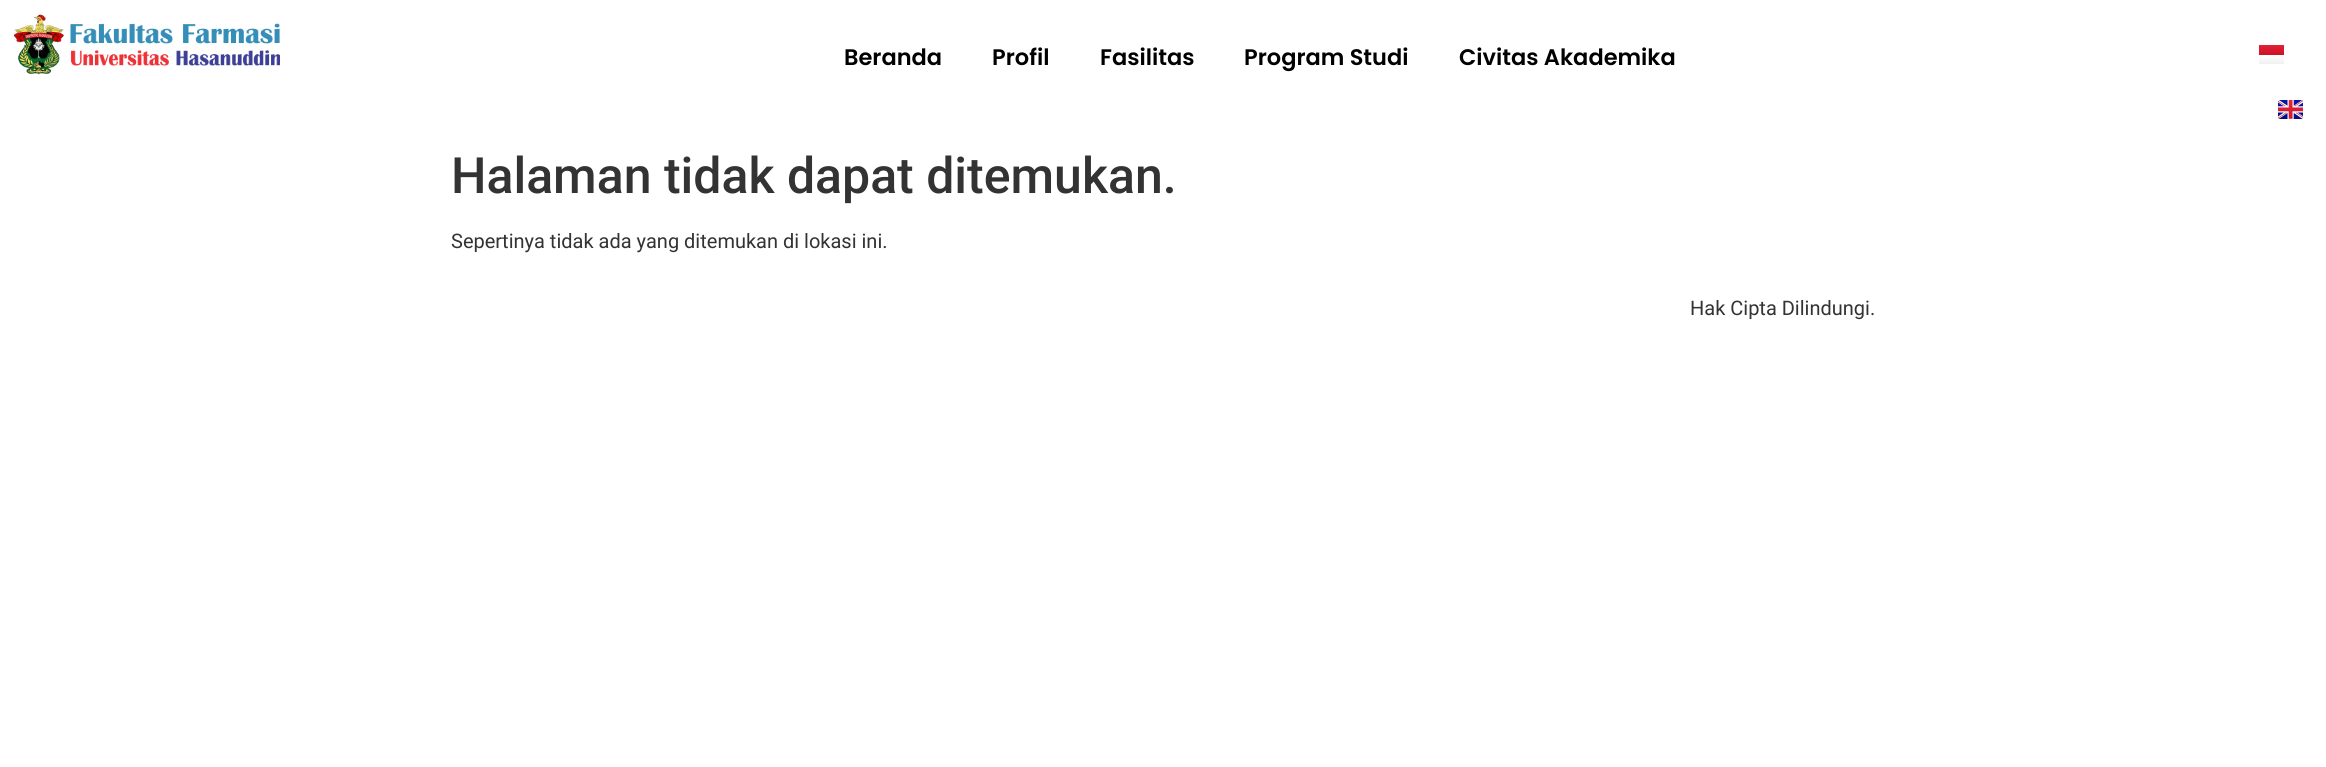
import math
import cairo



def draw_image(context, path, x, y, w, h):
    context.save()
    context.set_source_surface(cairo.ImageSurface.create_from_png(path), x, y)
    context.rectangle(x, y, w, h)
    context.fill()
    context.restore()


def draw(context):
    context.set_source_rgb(1, 1, 1)
    context.paint()
    draw_image(context, "images/1.png", 13, 14, 267, 61)
    gradient = cairo.LinearGradient(2272, 45, 2272, 55)
    gradient.add_color_stop_rgba(0, 225 / 255, 34 / 255, 55 / 255, 1)
    gradient.add_color_stop_rgba(1, 206 / 255, 17 / 255, 38 / 255, 1)
    context.set_source(gradient)
    context.rectangle(2259, 45, 25, 10)
    context.fill()
    gradient = cairo.LinearGradient(2272, 55, 2272, 64)
    gradient.add_color_stop_rgba(0, 1, 1, 1, 1)
    gradient.add_color_stop_rgba(1, 240 / 255, 240 / 255, 240 / 255, 1)
    context.set_source(gradient)
    context.rectangle(2259, 57, 25, 7)
    context.fill()
    draw_image(context, "images/2.png", 2278, 100, 25, 19)
    context.select_font_face("Poppins SemiBold")
    context.set_font_size(22.5)
    context.set_source_rgb(0, 0, 0)
    context.move_to(844, 65)
    context.show_text("Beranda")
    context.move_to(992, 65)
    context.show_text("Profil")
    context.move_to(1100, 65)
    context.show_text("Fasilitas")
    context.move_to(1244, 65)
    context.show_text("Program Studi")
    context.move_to(1459, 65)
    context.show_text("Civitas Akademika")
    context.select_font_face("Roboto Medium")
    context.set_font_size(50)
    context.set_source_rgb(51 / 255, 51 / 255, 51 / 255)
    context.move_to(451, 193)
    context.show_text("Halaman tidak dapat ditemukan.")
    context.select_font_face("Roboto")
    context.set_font_size(20)
    context.move_to(451, 248)
    context.show_text("Sepertinya tidak ada yang ditemukan di lokasi ini.")
    context.move_to(1690, 315)
    context.show_text("Hak Cipta Dilindungi.")


surface = cairo.ImageSurface(cairo.Format.RGB24, 2326, 767)
context = cairo.Context(surface)
options = cairo.FontOptions()
options.set_hint_metrics(cairo.HintMetrics.OFF)
options.set_hint_style(cairo.HintStyle.NONE)
context.set_font_options(options)
context.set_miter_limit(4)
draw(context)
surface.write_to_png("out.png")
